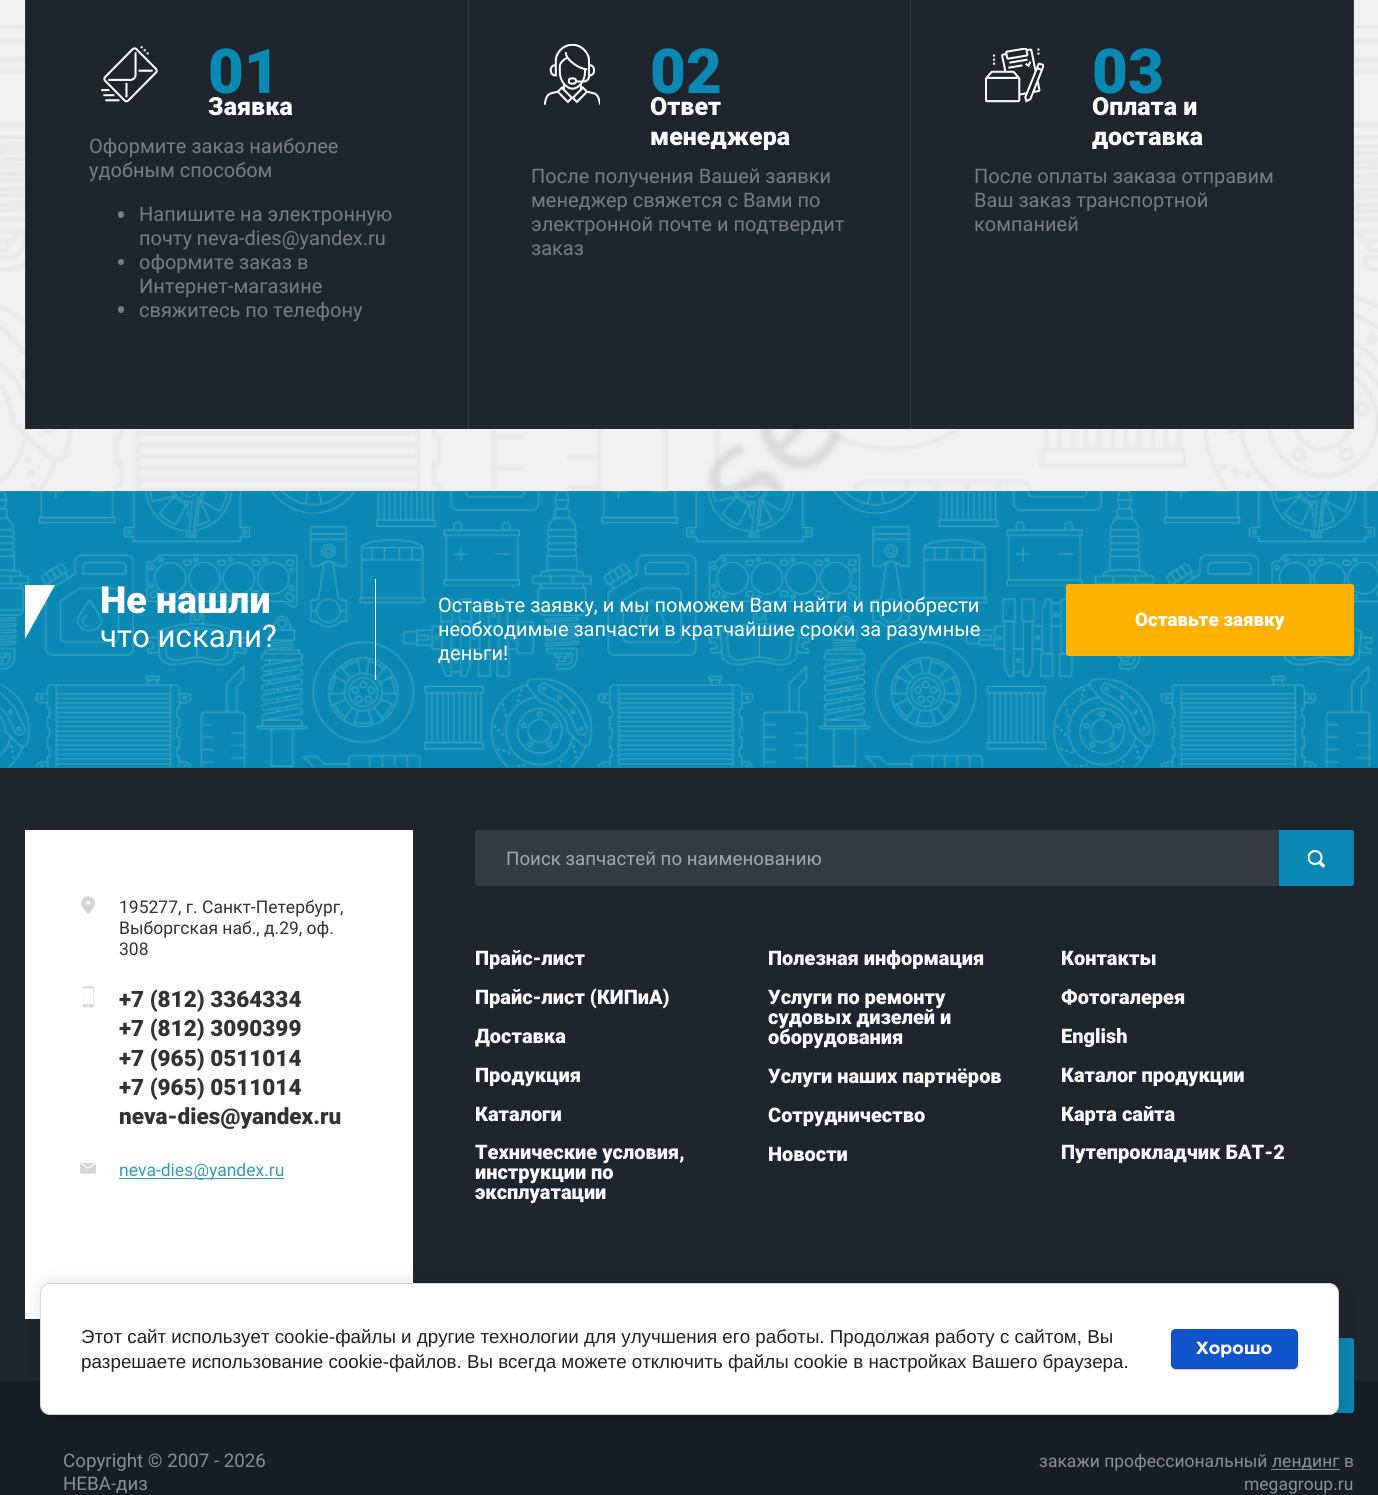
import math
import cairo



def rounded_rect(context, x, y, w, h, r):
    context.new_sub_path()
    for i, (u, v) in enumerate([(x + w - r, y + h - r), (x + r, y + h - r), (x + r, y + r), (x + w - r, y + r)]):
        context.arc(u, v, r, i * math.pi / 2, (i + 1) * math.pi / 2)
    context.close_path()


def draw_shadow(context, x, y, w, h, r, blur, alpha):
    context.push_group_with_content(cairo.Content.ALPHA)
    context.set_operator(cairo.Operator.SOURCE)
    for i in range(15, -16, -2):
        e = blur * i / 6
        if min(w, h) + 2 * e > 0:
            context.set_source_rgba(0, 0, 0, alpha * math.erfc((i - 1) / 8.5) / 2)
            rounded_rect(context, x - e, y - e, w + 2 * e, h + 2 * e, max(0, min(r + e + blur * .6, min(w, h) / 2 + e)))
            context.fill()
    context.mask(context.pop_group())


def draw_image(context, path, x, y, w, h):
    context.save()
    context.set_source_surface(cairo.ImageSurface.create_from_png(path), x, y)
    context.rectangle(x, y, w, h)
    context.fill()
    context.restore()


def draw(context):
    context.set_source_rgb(31 / 255, 37 / 255, 44 / 255)
    context.paint()
    context.set_source_rgb(240 / 255, 240 / 255, 240 / 255)
    context.rectangle(0, 0, 1378, 491)
    context.fill()
    draw_image(context, "images/1.png", 0, 25, 1378, 466)
    context.set_source_rgb(31 / 255, 37 / 255, 44 / 255)
    context.rectangle(26, 0, 442, 429)
    context.fill()
    context.set_source_rgb(53 / 255, 59 / 255, 65 / 255)
    context.rectangle(25, 0, 1, 429)
    context.fill()
    draw_image(context, "images/2.png", 101, 46, 57, 57)
    context.set_source_rgb(121 / 255, 124 / 255, 128 / 255)
    rounded_rect(context, 118, 211, 6, 7, 3)
    context.fill()
    context.arc(121, 262, 3, 0, 2 * math.pi)
    context.fill()
    rounded_rect(context, 118, 306, 6, 7, 3)
    context.fill()
    context.set_source_rgb(31 / 255, 37 / 255, 44 / 255)
    context.rectangle(469, 0, 441, 429)
    context.fill()
    context.set_source_rgb(53 / 255, 59 / 255, 65 / 255)
    context.rectangle(468, 0, 1, 429)
    context.fill()
    draw_image(context, "images/3.png", 544, 44, 56, 61)
    context.set_source_rgb(31 / 255, 37 / 255, 44 / 255)
    context.rectangle(911, 0, 442, 429)
    context.fill()
    context.set_source_rgb(53 / 255, 59 / 255, 65 / 255)
    context.rectangle(1353, 0, 1, 429)
    context.fill()
    context.rectangle(910, 0, 1, 429)
    context.fill()
    draw_image(context, "images/4.png", 985, 48, 59, 55)
    context.set_source_rgb(9 / 255, 137 / 255, 179 / 255)
    context.rectangle(0, 491, 1378, 277)
    context.fill()
    draw_image(context, "images/5.png", 0, 491, 1378, 276)
    context.set_source_rgb(1, 1, 1)
    context.set_fill_rule(cairo.FillRule.EVEN_ODD)
    context.new_path()
    context.move_to(25, 639)
    context.line_to(55, 585)
    context.line_to(25, 585)
    context.close_path()
    context.fill()
    context.rectangle(375, 579, 1, 101)
    context.fill()
    context.set_source_rgb(1, 178 / 255, 0)
    rounded_rect(context, 1066, 584, 288, 72, 2.5)
    context.fill()
    context.set_source_rgb(1, 1, 1)
    context.rectangle(25, 830, 388, 489)
    context.fill()
    draw_image(context, "images/6.png", 81, 896, 14, 18)
    draw_image(context, "images/7.png", 83, 986, 11, 22)
    draw_image(context, "images/8.png", 80, 1163, 16, 11)
    context.set_source_rgb(46 / 255, 155 / 255, 190 / 255)
    context.rectangle(119, 1178, 165, 1)
    context.fill()
    context.set_source_rgb(53 / 255, 59 / 255, 65 / 255)
    context.new_path()
    context.move_to(477.5, 830)
    context.line_to(1279, 830)
    context.line_to(1279, 886)
    context.line_to(477.5, 886)
    context.curve_to(476, 886, 475, 885, 475, 883.5)
    context.line_to(475, 832.5)
    context.curve_to(475, 831, 476, 830, 477.5, 830)
    context.close_path()
    context.fill()
    context.set_source_rgb(9 / 255, 137 / 255, 179 / 255)
    context.new_path()
    context.move_to(1279, 830)
    context.line_to(1351.5, 830)
    context.curve_to(1353, 830, 1354, 831, 1354, 832.5)
    context.line_to(1354, 883.5)
    context.curve_to(1354, 885, 1353, 886, 1351.5, 886)
    context.line_to(1279, 886)
    context.close_path()
    context.fill()
    draw_image(context, "images/9.png", 1308, 850, 17, 18)
    context.set_source_rgb(23 / 255, 29 / 255, 36 / 255)
    context.rectangle(0, 1381, 1378, 114)
    context.fill()
    context.set_source_rgb(9 / 255, 137 / 255, 179 / 255)
    rounded_rect(context, 1279, 1338, 75, 75, 2.5)
    context.fill()
    context.set_source_rgb(139 / 255, 142 / 255, 146 / 255)
    context.rectangle(1271, 1469, 69, 1)
    context.fill()
    context.set_source_rgb(0, 0, 0)
    draw_shadow(context, 43, 1285, 1298, 133, 10, 11, 0.14)
    context.set_source_rgb(1, 1, 1)
    rounded_rect(context, 40.5, 1283.5, 1298, 131, 9.5)
    context.fill_preserve()
    context.set_source_rgb(214 / 255, 214 / 255, 214 / 255)
    context.set_line_width(1)
    context.stroke()
    context.set_source_rgb(0, 0, 0)
    draw_shadow(context, 1171, 1330, 127, 40, 5, 0.5, 0.2)
    context.set_source_rgb(17 / 255, 85 / 255, 204 / 255)
    rounded_rect(context, 1171, 1329, 127, 40, 5)
    context.fill()
    rounded_rect(context, 1171.5, 1329.5, 126, 39, 4.5)
    context.set_source_rgba(0, 0, 0, 0.1)
    context.stroke()
    context.select_font_face("Roboto Black")
    context.set_font_size(62)
    context.set_source_rgb(9 / 255, 137 / 255, 179 / 255)
    context.move_to(208, 93)
    context.show_text("01")
    context.set_font_size(25)
    context.set_source_rgb(1, 1, 1)
    context.move_to(208, 115)
    context.show_text("Заявка")
    context.select_font_face("Roboto")
    context.set_font_size(20)
    context.set_source_rgb(121 / 255, 124 / 255, 128 / 255)
    context.move_to(89, 153)
    context.show_text("Оформите заказ наиболее")
    context.move_to(89, 177)
    context.show_text("удобным способом")
    context.move_to(139, 221)
    context.show_text("Напишите на электронную")
    context.move_to(139, 245)
    context.show_text("почту neva-dies@yandex.ru")
    context.move_to(139, 269)
    context.show_text("оформите заказ в")
    context.move_to(139, 293)
    context.show_text("Интернет-магазине")
    context.move_to(139, 317)
    context.show_text("свяжитесь по телефону")
    context.select_font_face("Roboto Black")
    context.set_font_size(62)
    context.set_source_rgb(9 / 255, 137 / 255, 179 / 255)
    context.move_to(650, 93)
    context.show_text("02")
    context.set_font_size(25)
    context.set_source_rgb(1, 1, 1)
    context.move_to(650, 115)
    context.show_text("Ответ")
    context.move_to(650, 145)
    context.show_text("менеджера")
    context.select_font_face("Roboto")
    context.set_font_size(20)
    context.set_source_rgb(121 / 255, 124 / 255, 128 / 255)
    context.move_to(531, 183)
    context.show_text("После получения Вашей заявки")
    context.move_to(531, 207)
    context.show_text("менеджер свяжется с Вами по")
    context.move_to(531, 231)
    context.show_text("электронной почте и подтвердит")
    context.move_to(531, 255)
    context.show_text("заказ")
    context.select_font_face("Roboto Black")
    context.set_font_size(62)
    context.set_source_rgb(9 / 255, 137 / 255, 179 / 255)
    context.move_to(1092, 93)
    context.show_text("03")
    context.set_font_size(25)
    context.set_source_rgb(1, 1, 1)
    context.move_to(1092, 115)
    context.show_text("Оплата и")
    context.move_to(1092, 145)
    context.show_text("доставка")
    context.select_font_face("Roboto")
    context.set_font_size(20)
    context.set_source_rgb(121 / 255, 124 / 255, 128 / 255)
    context.move_to(974, 183)
    context.show_text("После оплаты заказа отправим")
    context.move_to(974, 207)
    context.show_text("Ваш заказ транспортной")
    context.move_to(974, 231)
    context.show_text("компанией")
    context.select_font_face("Roboto Black")
    context.set_font_size(37.5)
    context.set_source_rgb(1, 1, 1)
    context.move_to(100, 613)
    context.show_text("Не нашли")
    context.select_font_face("Roboto")
    context.set_font_size(31.25)
    context.move_to(100, 647)
    context.show_text("что искали?")
    context.set_font_size(20)
    context.move_to(438, 612)
    context.show_text("Оставьте заявку, и мы поможем Вам найти и приобрести")
    context.move_to(438, 636)
    context.show_text("необходимые запчасти в кратчайшие сроки за разумные")
    context.move_to(438, 660)
    context.show_text("деньги!")
    context.select_font_face("Roboto Black")
    context.set_font_size(18.75)
    context.move_to(1135, 626)
    context.show_text("Оставьте заявку")
    context.select_font_face("Roboto")
    context.set_font_size(17.5)
    context.set_source_rgb(50 / 255, 50 / 255, 50 / 255)
    context.move_to(119, 913)
    context.show_text("195277, г. Санкт-Петербург,")
    context.move_to(119, 934)
    context.show_text("Выборгская наб., д.29, оф.")
    context.move_to(119, 955)
    context.show_text("308")
    context.select_font_face("Roboto Black")
    context.set_font_size(22.5)
    context.move_to(119, 1007)
    context.show_text("+7 (812) 3364334")
    context.move_to(119, 1036)
    context.show_text("+7 (812) 3090399")
    context.move_to(119, 1066)
    context.show_text("+7 (965) 0511014")
    context.move_to(119, 1095)
    context.show_text("+7 (965) 0511014")
    context.move_to(119, 1124)
    context.show_text("neva-dies@yandex.ru")
    context.select_font_face("Roboto")
    context.set_font_size(17.5)
    context.set_source_rgb(46 / 255, 155 / 255, 190 / 255)
    context.move_to(119, 1176)
    context.show_text("neva-dies@yandex.ru")
    context.set_font_size(18.75)
    context.set_source_rgb(164 / 255, 167 / 255, 170 / 255)
    context.move_to(506, 865)
    context.show_text("Поиск запчастей по наименованию")
    context.select_font_face("Roboto Black")
    context.set_font_size(20)
    context.set_source_rgb(1, 1, 1)
    context.move_to(475, 965)
    context.show_text("Прайс-лист")
    context.move_to(475, 1004)
    context.show_text("Прайс-лист (КИПиА)")
    context.move_to(475, 1043)
    context.show_text("Доставка")
    context.move_to(475, 1082)
    context.show_text("Продукция")
    context.move_to(475, 1121)
    context.show_text("Каталоги")
    context.move_to(475, 1159)
    context.show_text("Технические условия,")
    context.move_to(475, 1179)
    context.show_text("инструкции по")
    context.move_to(475, 1199)
    context.show_text("эксплуатации")
    context.move_to(768, 965)
    context.show_text("Полезная информация")
    context.move_to(768, 1004)
    context.show_text("Услуги по ремонту")
    context.move_to(768, 1024)
    context.show_text("судовых дизелей и")
    context.move_to(768, 1044)
    context.show_text("оборудования")
    context.move_to(768, 1083)
    context.show_text("Услуги наших партнёров")
    context.move_to(768, 1122)
    context.show_text("Сотрудничество")
    context.move_to(768, 1161)
    context.show_text("Новости")
    context.move_to(1061, 965)
    context.show_text("Контакты")
    context.move_to(1061, 1004)
    context.show_text("Фотогалерея")
    context.move_to(1061, 1043)
    context.show_text("English")
    context.move_to(1061, 1082)
    context.show_text("Каталог продукции")
    context.move_to(1061, 1121)
    context.show_text("Карта сайта")
    context.move_to(1061, 1159)
    context.show_text("Путепрокладчик БАТ-2")
    context.select_font_face("Roboto")
    context.set_font_size(18.75)
    context.set_source_rgb(139 / 255, 142 / 255, 146 / 255)
    context.move_to(63, 1467)
    context.show_text("Copyright © 2007 - 2026")
    context.move_to(63, 1490)
    context.show_text("НЕВА-диз")
    context.set_font_size(17.5)
    context.move_to(1039, 1467)
    context.show_text("закажи профессиональный")
    context.move_to(1272, 1467)
    context.show_text("лендинг")
    context.move_to(1344, 1467)
    context.show_text("в")
    context.move_to(1244, 1490)
    context.show_text("megagroup.ru")
    context.select_font_face("Liberation Sans")
    context.set_font_size(18.75)
    context.set_source_rgb(33 / 255, 33 / 255, 33 / 255)
    context.move_to(81, 1343)
    context.show_text("Этот сайт использует cookie-файлы и другие технологии для улучшения его работы. Продолжая работу с сайтом, Вы")
    context.move_to(81, 1368)
    context.show_text("разрешаете использование cookie-файлов. Вы всегда можете отключить файлы cookie в настройках Вашего браузера.")
    context.select_font_face("Montserrat", cairo.FontSlant.NORMAL, cairo.FontWeight.BOLD)
    context.set_font_size(17.5)
    context.set_source_rgb(1, 1, 1)
    context.move_to(1196, 1354)
    context.show_text("Хорошо")


surface = cairo.ImageSurface(cairo.Format.RGB24, 1378, 1495)
context = cairo.Context(surface)
options = cairo.FontOptions()
options.set_hint_metrics(cairo.HintMetrics.OFF)
options.set_hint_style(cairo.HintStyle.NONE)
context.set_font_options(options)
context.set_miter_limit(4)
draw(context)
surface.write_to_png("out.png")
